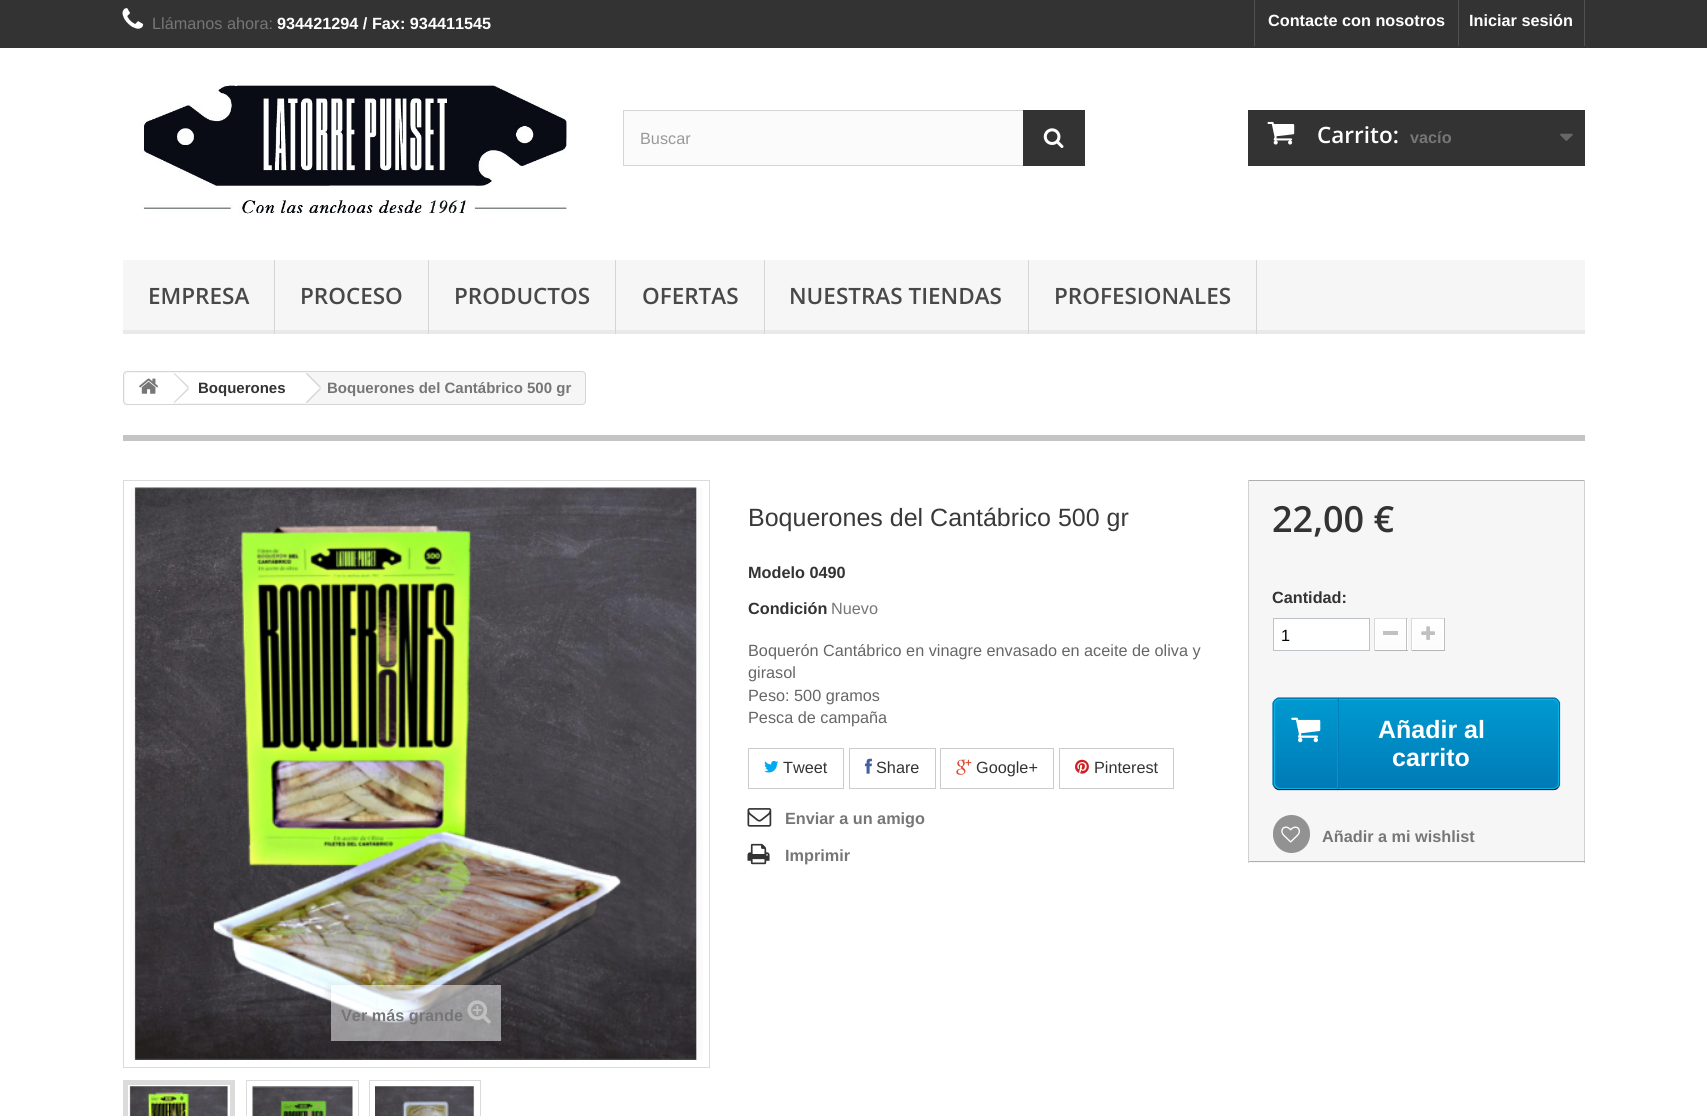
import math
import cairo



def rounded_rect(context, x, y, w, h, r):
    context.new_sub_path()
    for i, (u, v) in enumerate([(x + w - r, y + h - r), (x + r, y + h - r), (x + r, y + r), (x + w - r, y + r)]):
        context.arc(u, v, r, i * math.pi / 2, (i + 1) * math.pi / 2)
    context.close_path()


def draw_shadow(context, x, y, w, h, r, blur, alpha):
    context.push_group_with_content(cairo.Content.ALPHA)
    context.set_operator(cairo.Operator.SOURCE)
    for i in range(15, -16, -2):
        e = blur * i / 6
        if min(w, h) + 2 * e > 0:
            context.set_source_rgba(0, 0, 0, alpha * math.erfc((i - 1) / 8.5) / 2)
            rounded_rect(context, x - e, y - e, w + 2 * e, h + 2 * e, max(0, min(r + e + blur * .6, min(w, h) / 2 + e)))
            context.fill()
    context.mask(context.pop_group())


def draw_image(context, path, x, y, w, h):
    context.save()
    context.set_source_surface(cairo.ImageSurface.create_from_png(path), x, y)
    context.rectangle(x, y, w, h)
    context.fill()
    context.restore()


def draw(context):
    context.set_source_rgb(1, 1, 1)
    context.paint()
    context.set_source_rgb(51 / 255, 51 / 255, 51 / 255)
    context.rectangle(0, 0, 1707, 48)
    context.fill()
    draw_image(context, "images/1.png", 122, 8, 22, 21)
    context.set_source_rgb(81 / 255, 81 / 255, 81 / 255)
    context.rectangle(1254, 0, 1, 46)
    context.fill()
    context.rectangle(1584, 0, 1, 46)
    context.fill()
    context.rectangle(1458, 0, 1, 46)
    context.fill()
    draw_image(context, "images/2.png", 141, 85, 426, 129)
    context.set_source_rgb(251 / 255, 251 / 255, 251 / 255)
    context.rectangle(624, 111, 399, 54)
    context.fill()
    context.rectangle(623.5, 110.5, 461, 55)
    context.set_source_rgb(214 / 255, 212 / 255, 212 / 255)
    context.set_line_width(1)
    context.stroke()
    context.set_source_rgb(51 / 255, 51 / 255, 51 / 255)
    context.rectangle(1023, 110, 62, 56)
    context.fill()
    draw_image(context, "images/3.png", 1043, 128, 21, 20)
    context.rectangle(1248, 110, 337, 56)
    context.fill()
    draw_image(context, "images/4.png", 1267, 121, 28, 24)
    draw_image(context, "images/5.png", 1560, 133, 13, 8)
    context.set_source_rgb(246 / 255, 246 / 255, 246 / 255)
    context.rectangle(123, 260, 1462, 70)
    context.fill()
    context.set_source_rgb(233 / 255, 233 / 255, 233 / 255)
    context.rectangle(123, 330, 1462, 4)
    context.fill()
    context.set_source_rgb(214 / 255, 212 / 255, 212 / 255)
    context.rectangle(274, 260, 1, 74)
    context.fill()
    context.rectangle(428, 260, 1, 74)
    context.fill()
    context.rectangle(615, 260, 1, 74)
    context.fill()
    context.rectangle(764, 260, 1, 74)
    context.fill()
    context.rectangle(1028, 260, 1, 74)
    context.fill()
    context.rectangle(1256, 260, 1, 74)
    context.fill()
    context.set_source_rgb(246 / 255, 246 / 255, 246 / 255)
    rounded_rect(context, 123.5, 371.5, 462, 33, 3.5)
    context.fill_preserve()
    context.set_source_rgb(214 / 255, 212 / 255, 212 / 255)
    context.stroke()
    context.set_source_rgb(1, 1, 1)
    context.new_path()
    context.move_to(129, 373)
    context.line_to(173, 373)
    context.line_to(173, 404)
    context.line_to(129, 404)
    context.curve_to(127, 404, 125, 402, 125, 400)
    context.line_to(125, 377)
    context.curve_to(125, 375, 127, 373, 129, 373)
    context.close_path()
    context.fill()
    draw_image(context, "images/6.png", 139, 378, 20, 16)
    context.rectangle(173, 373, 132, 30)
    context.fill()
    context.set_source_rgb(214 / 255, 212 / 255, 212 / 255)
    context.new_path()
    context.move_to(174.5, 373)
    context.line_to(189, 387)
    context.line_to(188, 388)
    context.line_to(174, 374)
    context.close_path()
    context.move_to(188, 388)
    context.line_to(189, 389)
    context.line_to(174.5, 403)
    context.line_to(174, 402)
    context.close_path()
    context.fill()
    context.set_source_rgb(1, 1, 1)
    context.new_path()
    context.move_to(307.5, 374)
    context.line_to(320, 386)
    context.curve_to(321, 387, 321, 389, 320, 390)
    context.line_to(307.5, 402)
    context.curve_to(306.5, 403, 305, 403, 304, 402)
    context.line_to(291.5, 390)
    context.curve_to(291, 389, 291, 387, 291.5, 386)
    context.line_to(304, 374)
    context.curve_to(305, 373, 306.5, 373, 307.5, 374)
    context.close_path()
    context.fill()
    context.set_source_rgb(214 / 255, 212 / 255, 212 / 255)
    context.new_path()
    context.move_to(307, 373)
    context.line_to(321, 387)
    context.line_to(320, 388)
    context.line_to(306, 374)
    context.close_path()
    context.move_to(320, 388)
    context.line_to(321, 389)
    context.line_to(307, 403)
    context.line_to(306, 402)
    context.close_path()
    context.fill()
    context.set_source_rgb(196 / 255, 196 / 255, 196 / 255)
    context.rectangle(123, 435, 1462, 6)
    context.fill()
    context.rectangle(748.5, 748.5, 95, 40)
    context.set_source_rgb(204 / 255, 204 / 255, 204 / 255)
    context.stroke()
    draw_image(context, "images/7.png", 764, 760, 15, 13)
    context.rectangle(849.5, 748.5, 86, 40)
    context.stroke()
    draw_image(context, "images/8.png", 865, 758, 7, 16)
    context.rectangle(940.5, 748.5, 113, 40)
    context.stroke()
    draw_image(context, "images/9.png", 956, 759, 16, 16)
    context.rectangle(1059.5, 748.5, 114, 40)
    context.stroke()
    draw_image(context, "images/10.png", 1075, 759, 14, 15)
    draw_image(context, "images/11.png", 747, 808, 25, 19)
    draw_image(context, "images/12.png", 747, 843, 23, 22)
    context.set_source_rgb(246 / 255, 246 / 255, 246 / 255)
    context.rectangle(1249, 481, 335, 382)
    context.fill()
    context.set_source_rgb(176 / 255, 175 / 255, 175 / 255)
    context.rectangle(1248, 480, 337, 1)
    context.fill()
    context.set_source_rgb(210 / 255, 208 / 255, 208 / 255)
    context.rectangle(1584, 480, 1, 383)
    context.fill()
    context.set_source_rgb(176 / 255, 175 / 255, 175 / 255)
    context.rectangle(1248, 861, 337, 1)
    context.fill()
    context.set_source_rgb(210 / 255, 208 / 255, 208 / 255)
    context.rectangle(1248, 480, 1, 383)
    context.fill()
    context.set_source_rgb(1, 1, 1)
    context.rectangle(1273.5, 618.5, 96, 32)
    context.fill_preserve()
    context.set_source_rgb(189 / 255, 194 / 255, 201 / 255)
    context.stroke()
    context.set_source_rgb(1, 1, 1)
    context.rectangle(1407, 619, 1, 31)
    context.fill()
    context.set_source_rgb(222 / 255, 220 / 255, 220 / 255)
    context.rectangle(1374, 618, 34, 1)
    context.fill()
    context.set_source_rgb(193 / 255, 191 / 255, 191 / 255)
    context.rectangle(1406, 618, 1, 33)
    context.fill()
    context.set_source_rgb(181 / 255, 180 / 255, 180 / 255)
    context.rectangle(1374, 650, 34, 1)
    context.fill()
    context.set_source_rgb(218 / 255, 216 / 255, 216 / 255)
    context.rectangle(1374, 618, 1, 33)
    context.fill()
    gradient = cairo.LinearGradient(1391, 620, 1391, 649)
    gradient.add_color_stop_rgba(0, 1, 1, 1, 1)
    gradient.add_color_stop_rgba(1, 251 / 255, 251 / 255, 251 / 255, 1)
    context.set_source(gradient)
    context.rectangle(1376, 620, 29, 29)
    context.fill()
    context.rectangle(1375.5, 619.5, 30, 30)
    context.set_source_rgb(1, 1, 1)
    context.stroke()
    context.set_source_rgb(192 / 255, 192 / 255, 192 / 255)
    context.rectangle(1383, 631, 15, 4)
    context.fill()
    context.set_source_rgb(1, 1, 1)
    context.rectangle(1412, 619, 1, 31)
    context.fill()
    context.set_source_rgb(222 / 255, 220 / 255, 220 / 255)
    context.rectangle(1411, 618, 34, 1)
    context.fill()
    context.set_source_rgb(193 / 255, 191 / 255, 191 / 255)
    context.rectangle(1444, 618, 1, 33)
    context.fill()
    context.set_source_rgb(181 / 255, 180 / 255, 180 / 255)
    context.rectangle(1411, 650, 34, 1)
    context.fill()
    context.set_source_rgb(218 / 255, 216 / 255, 216 / 255)
    context.rectangle(1411, 618, 1, 33)
    context.fill()
    gradient = cairo.LinearGradient(1428, 620, 1428, 649)
    gradient.add_color_stop_rgba(0, 1, 1, 1, 1)
    gradient.add_color_stop_rgba(1, 251 / 255, 251 / 255, 251 / 255, 1)
    context.set_source(gradient)
    context.rectangle(1414, 620, 29, 29)
    context.fill()
    context.rectangle(1413.5, 619.5, 30, 30)
    context.set_source_rgb(1, 1, 1)
    context.stroke()
    draw_image(context, "images/13.png", 1421, 626, 14, 14)
    context.save()
    rounded_rect(context, 1273, 698, 287, 92, 6)
    context.clip()
    gradient = cairo.LinearGradient(1416, 609, 1416, 699)
    gradient.add_color_stop_rgba(0, 0, 154 / 255, 208 / 255, 1)
    gradient.add_color_stop_rgba(1, 0, 122 / 255, 183 / 255, 1)
    context.set_source(gradient)
    context.rectangle(1273, 698, 287, 1)
    context.fill()
    gradient = cairo.LinearGradient(1416, 699, 1416, 789)
    gradient.add_color_stop_rgba(0, 0, 154 / 255, 208 / 255, 1)
    gradient.add_color_stop_rgba(1, 0, 122 / 255, 183 / 255, 1)
    context.set_source(gradient)
    context.rectangle(1273, 699, 287, 90)
    context.fill()
    gradient = cairo.LinearGradient(1416, 789, 1416, 879)
    gradient.add_color_stop_rgba(0, 0, 154 / 255, 208 / 255, 1)
    gradient.add_color_stop_rgba(1, 0, 122 / 255, 183 / 255, 1)
    context.set_source(gradient)
    context.rectangle(1273, 789, 287, 1)
    context.fill()
    context.restore()
    context.new_path()
    context.move_to(1275, 700)
    context.line_to(1278, 698)
    context.line_to(1554, 698)
    context.curve_to(1555, 698, 1556.5, 698.5, 1557.5, 700)
    context.set_source_rgb(0, 121 / 255, 182 / 255)
    context.set_line_width(1.2)
    context.stroke()
    context.new_path()
    context.move_to(1557.5, 700)
    context.line_to(1559.5, 703)
    context.line_to(1559.5, 784.5)
    context.line_to(1557.5, 787.5)
    context.set_source_rgb(0, 111 / 255, 168 / 255)
    context.stroke()
    context.new_path()
    context.move_to(1557.5, 787.5)
    context.curve_to(1556.5, 789, 1555, 789.5, 1554, 789.5)
    context.line_to(1278, 789.5)
    context.line_to(1275, 787.5)
    context.set_source_rgb(1 / 255, 39 / 255, 64 / 255)
    context.stroke()
    context.new_path()
    context.move_to(1275, 787.5)
    context.line_to(1273, 784.5)
    context.line_to(1273, 703)
    context.line_to(1275, 700)
    context.set_source_rgb(0, 111 / 255, 168 / 255)
    context.stroke()
    rounded_rect(context, 1274.5, 699.5, 284, 89, 5.5)
    context.set_source_rgb(6 / 255, 178 / 255, 230 / 255)
    context.set_line_width(1)
    context.stroke()
    context.new_path()
    context.move_to(1280, 699.5)
    context.line_to(1337.5, 699.5)
    context.line_to(1337.5, 788.5)
    context.line_to(1280, 788.5)
    context.curve_to(1277, 788.5, 1274.5, 786, 1274.5, 783)
    context.line_to(1274.5, 705)
    context.curve_to(1274.5, 702, 1277, 699.5, 1280, 699.5)
    context.close_path()
    context.stroke()
    draw_image(context, "images/14.png", 1291, 717, 30, 26)
    draw_image(context, "images/15.png", 1337, 699, 2, 90)
    context.set_source_rgb(146 / 255, 146 / 255, 146 / 255)
    rounded_rect(context, 1273, 815, 37, 38, 18.5)
    context.fill()
    draw_image(context, "images/16.png", 1281, 826, 19, 17)
    context.rectangle(123.5, 480.5, 586, 587)
    context.set_source_rgb(219 / 255, 219 / 255, 219 / 255)
    context.stroke()
    context.set_source_rgb(251 / 255, 251 / 255, 251 / 255)
    context.rectangle(130, 488, 573, 572)
    context.fill()
    draw_image(context, "images/17.png", 134, 487, 563, 573)
    context.save()
    context.set_fill_rule(cairo.FillRule.EVEN_ODD)
    context.new_path()
    context.move_to(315, 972)
    context.line_to(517, 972)
    context.line_to(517, 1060)
    context.line_to(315, 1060)
    context.close_path()
    context.move_to(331, 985)
    context.line_to(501, 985)
    context.line_to(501, 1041)
    context.line_to(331, 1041)
    context.close_path()
    context.clip()
    context.set_source_rgb(0, 0, 0)
    draw_shadow(context, 331, 988, 170, 56, 0, 5, 0.16)
    context.restore()
    context.set_source_rgba(1, 1, 1, 0.5)
    context.rectangle(331, 985, 170, 56)
    context.fill()
    draw_image(context, "images/18.png", 467, 1000, 24, 24)
    context.rectangle(123.5, 1080.5, 111, 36)
    context.set_source_rgb(219 / 255, 219 / 255, 219 / 255)
    context.stroke()
    context.set_source_rgb(251 / 255, 251 / 255, 251 / 255)
    context.rectangle(129, 1086, 100, 30)
    context.fill()
    context.rectangle(126, 1083, 106, 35)
    context.set_source_rgb(219 / 255, 219 / 255, 219 / 255)
    context.set_line_width(4)
    context.stroke()
    draw_image(context, "images/19.png", 129, 1086, 99, 30)
    context.rectangle(246.5, 1080.5, 112, 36)
    context.set_line_width(1)
    context.stroke()
    context.set_source_rgb(251 / 255, 251 / 255, 251 / 255)
    context.rectangle(252, 1086, 101, 30)
    context.fill()
    draw_image(context, "images/20.png", 252, 1086, 101, 30)
    context.rectangle(369.5, 1080.5, 111, 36)
    context.set_source_rgb(219 / 255, 219 / 255, 219 / 255)
    context.stroke()
    context.set_source_rgb(251 / 255, 251 / 255, 251 / 255)
    context.rectangle(375, 1086, 100, 30)
    context.fill()
    draw_image(context, "images/21.png", 375, 1086, 99, 30)
    context.select_font_face("Liberation Sans")
    context.set_font_size(16.25)
    context.set_source_rgb(119 / 255, 118 / 255, 118 / 255)
    context.move_to(152, 29)
    context.show_text("Llámanos ahora:")
    context.select_font_face("Liberation Sans", cairo.FontSlant.NORMAL, cairo.FontWeight.BOLD)
    context.set_source_rgb(1, 1, 1)
    context.move_to(277, 29)
    context.show_text("934421294 / Fax: 934411545")
    context.move_to(1268, 26)
    context.show_text("Contacte con nosotros")
    context.move_to(1469, 26)
    context.show_text("Iniciar sesión")
    context.select_font_face("Liberation Sans")
    context.set_source_rgb(153 / 255, 153 / 255, 153 / 255)
    context.move_to(640, 144)
    context.show_text("Buscar")
    context.select_font_face("Open Sans SemiBold")
    context.set_font_size(22.5)
    context.set_source_rgb(1, 1, 1)
    context.move_to(1317, 143)
    context.show_text("Carrito:")
    context.select_font_face("Liberation Sans", cairo.FontSlant.NORMAL, cairo.FontWeight.BOLD)
    context.set_font_size(16.25)
    context.set_source_rgb(119 / 255, 118 / 255, 118 / 255)
    context.move_to(1410, 143)
    context.show_text("vacío")
    context.select_font_face("Open Sans SemiBold")
    context.set_font_size(22.5)
    context.set_source_rgb(72 / 255, 72 / 255, 72 / 255)
    context.move_to(148, 304)
    context.show_text("EMPRESA")
    context.move_to(300, 304)
    context.show_text("PROCESO")
    context.move_to(454, 304)
    context.show_text("PRODUCTOS")
    context.move_to(642, 304)
    context.show_text("OFERTAS")
    context.move_to(789, 304)
    context.show_text("NUESTRAS TIENDAS")
    context.move_to(1054, 304)
    context.show_text("PROFESIONALES")
    context.select_font_face("Liberation Sans", cairo.FontSlant.NORMAL, cairo.FontWeight.BOLD)
    context.set_font_size(15)
    context.set_source_rgb(51 / 255, 51 / 255, 51 / 255)
    context.move_to(198, 393)
    context.show_text("Boquerones")
    context.set_source_rgb(119 / 255, 118 / 255, 118 / 255)
    context.move_to(327, 393)
    context.show_text("Boquerones del Cantábrico 500 gr")
    context.select_font_face("Liberation Sans")
    context.set_font_size(25)
    context.set_source_rgb(58 / 255, 57 / 255, 57 / 255)
    context.move_to(748, 526)
    context.show_text("Boquerones del Cantábrico 500 gr")
    context.select_font_face("Liberation Sans", cairo.FontSlant.NORMAL, cairo.FontWeight.BOLD)
    context.set_font_size(16.25)
    context.set_source_rgb(51 / 255, 51 / 255, 51 / 255)
    context.move_to(748, 578)
    context.show_text("Modelo 0490")
    context.move_to(748, 614)
    context.show_text("Condición")
    context.select_font_face("Liberation Sans")
    context.set_source_rgb(119 / 255, 118 / 255, 118 / 255)
    context.move_to(831, 614)
    context.show_text("Nuevo")
    context.set_source_rgb(102 / 255, 102 / 255, 102 / 255)
    context.move_to(748, 656)
    context.show_text("Boquerón Cantábrico en vinagre envasado en aceite de oliva y")
    context.move_to(748, 678)
    context.show_text("girasol")
    context.move_to(748, 701)
    context.show_text("Peso: 500 gramos")
    context.move_to(748, 723)
    context.show_text("Pesca de campaña")
    context.set_source_rgb(51 / 255, 51 / 255, 51 / 255)
    context.move_to(783, 773)
    context.show_text("Tweet")
    context.move_to(876, 773)
    context.show_text("Share")
    context.move_to(976, 773)
    context.show_text("Google+")
    context.move_to(1094, 773)
    context.show_text("Pinterest")
    context.select_font_face("Liberation Sans", cairo.FontSlant.NORMAL, cairo.FontWeight.BOLD)
    context.set_source_rgb(119 / 255, 118 / 255, 118 / 255)
    context.move_to(785, 824)
    context.show_text("Enviar a un amigo")
    context.move_to(785, 861)
    context.show_text("Imprimir")
    context.select_font_face("Open Sans SemiBold")
    context.set_font_size(36)
    context.set_source_rgb(51 / 255, 51 / 255, 51 / 255)
    context.move_to(1272, 532)
    context.show_text("22,00 €")
    context.select_font_face("Liberation Sans", cairo.FontSlant.NORMAL, cairo.FontWeight.BOLD)
    context.set_font_size(16.25)
    context.move_to(1272, 603)
    context.show_text("Cantidad:")
    context.select_font_face("Liberation Sans")
    context.set_source_rgb(0, 0, 0)
    context.move_to(1281, 641)
    context.show_text("1")
    context.select_font_face("Liberation Sans", cairo.FontSlant.NORMAL, cairo.FontWeight.BOLD)
    context.set_font_size(25)
    context.set_source_rgb(1, 1, 1)
    context.move_to(1378, 738)
    context.show_text("Añadir al")
    context.move_to(1392, 766)
    context.show_text("carrito")
    context.set_font_size(16.25)
    context.set_source_rgb(119 / 255, 118 / 255, 118 / 255)
    context.move_to(1322, 842)
    context.show_text("Añadir a mi wishlist")
    context.move_to(341, 1021)
    context.show_text("Ver más grande")


surface = cairo.ImageSurface(cairo.Format.RGB24, 1707, 1116)
context = cairo.Context(surface)
options = cairo.FontOptions()
options.set_hint_metrics(cairo.HintMetrics.OFF)
options.set_hint_style(cairo.HintStyle.NONE)
context.set_font_options(options)
context.set_miter_limit(4)
draw(context)
surface.write_to_png("out.png")
